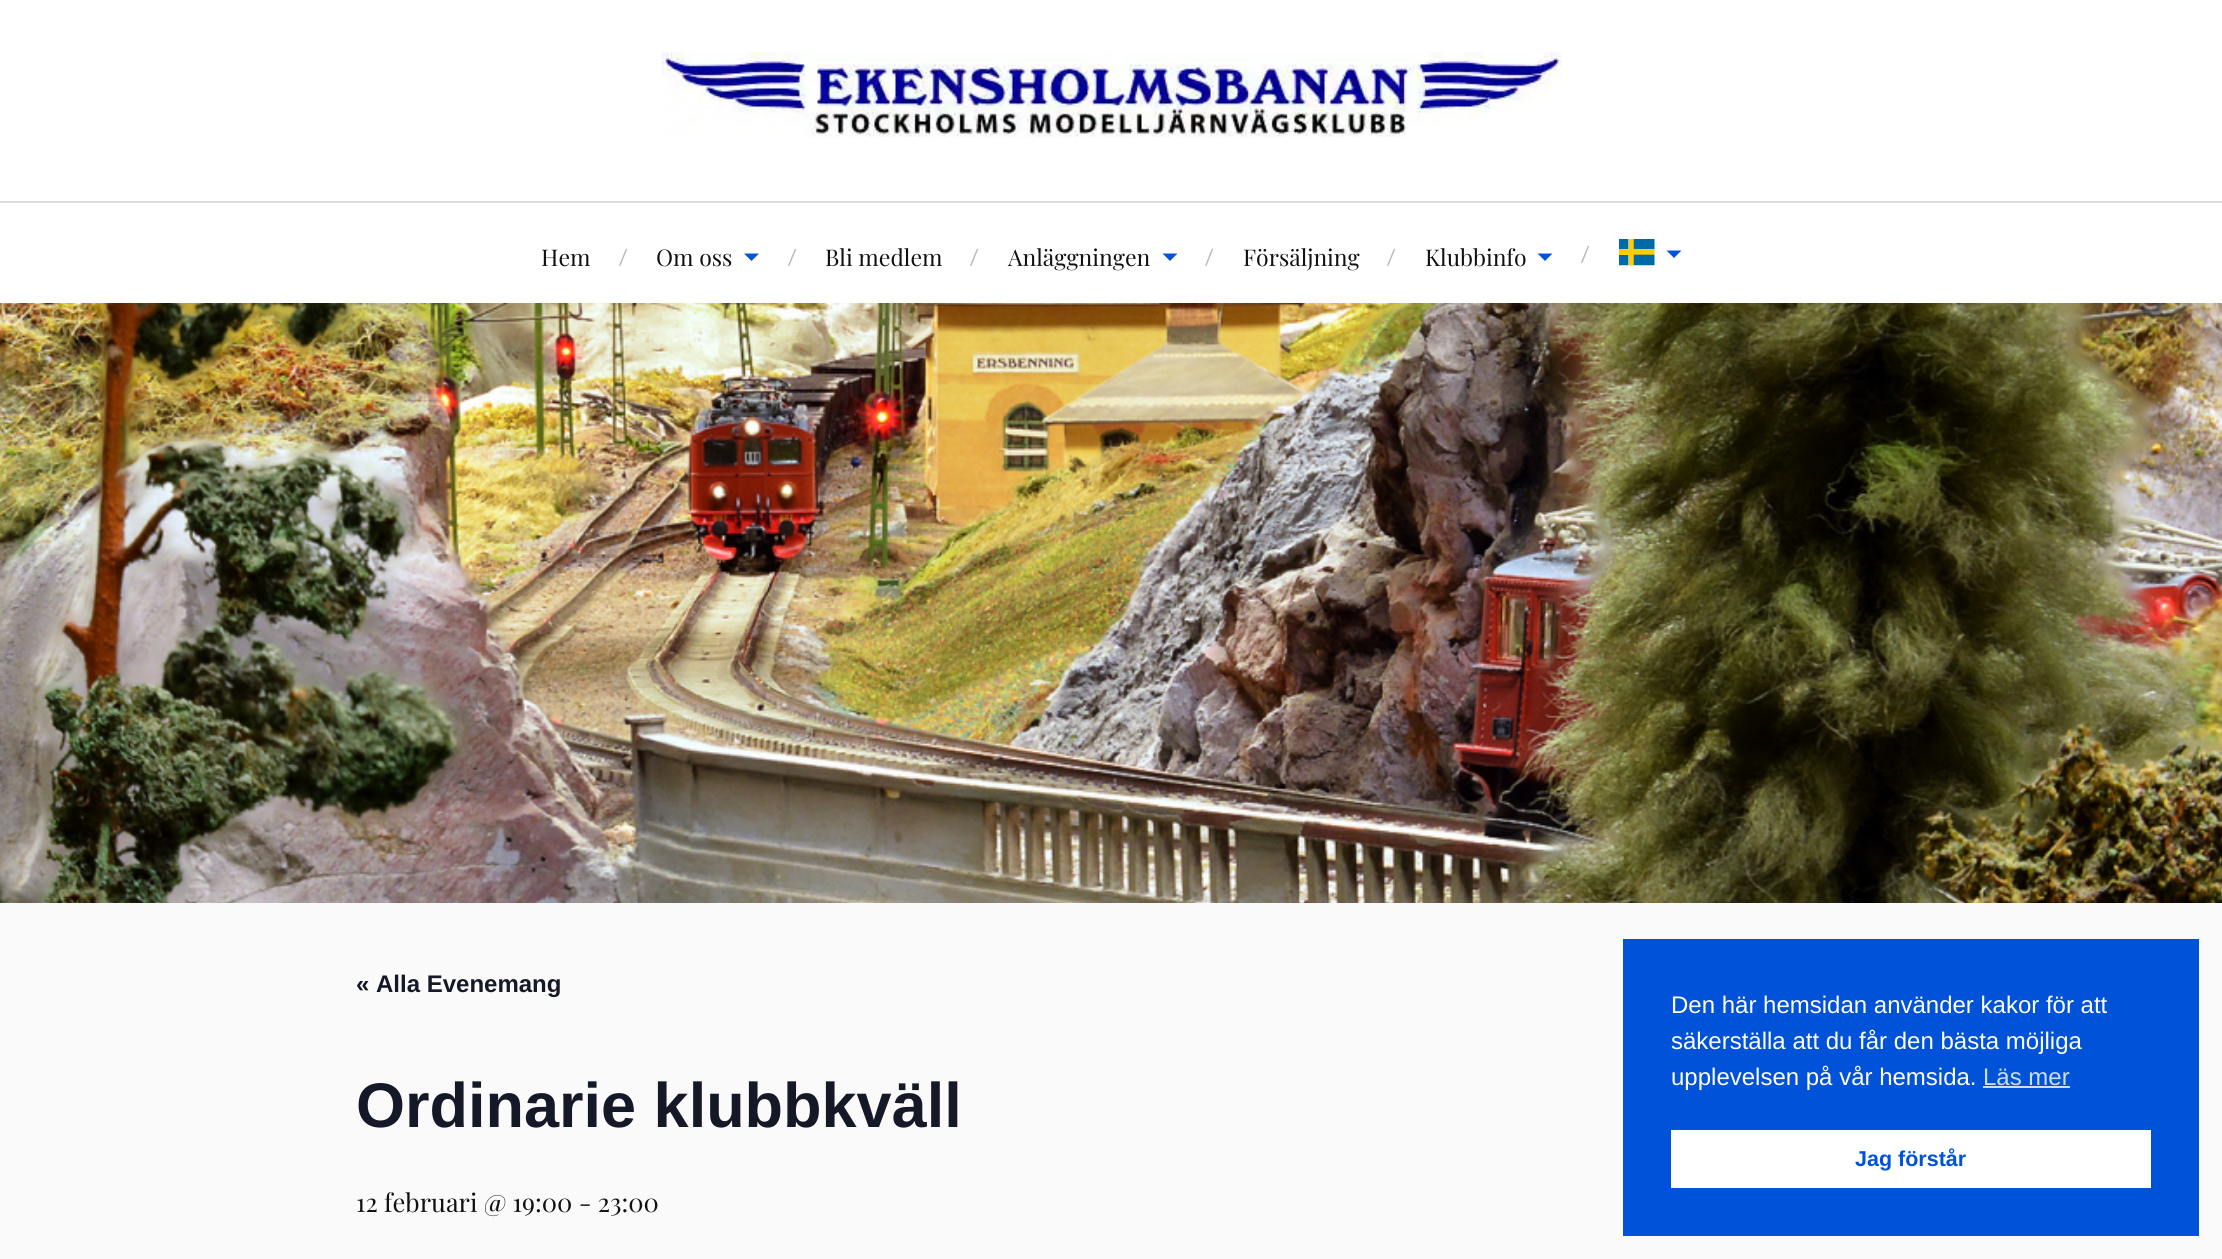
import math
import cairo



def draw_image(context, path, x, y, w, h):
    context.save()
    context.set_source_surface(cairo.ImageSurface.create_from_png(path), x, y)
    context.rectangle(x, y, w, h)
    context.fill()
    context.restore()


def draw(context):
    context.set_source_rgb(250 / 255, 250 / 255, 250 / 255)
    context.paint()
    context.set_source_rgb(1, 1, 1)
    context.rectangle(0, 0, 2222, 201)
    context.fill()
    draw_image(context, "images/1.png", 661, 52, 901, 86)
    context.rectangle(0, 203, 2222, 100)
    context.fill()
    context.set_source_rgb(221 / 255, 221 / 255, 221 / 255)
    context.rectangle(0, 201, 2222, 2)
    context.fill()
    context.set_source_rgb(0, 83 / 255, 216 / 255)
    context.new_path()
    context.move_to(744, 253.5)
    context.line_to(759, 253.5)
    context.line_to(751.5, 261)
    context.close_path()
    context.fill()
    context.new_path()
    context.move_to(1162.5, 253.5)
    context.line_to(1177.5, 253.5)
    context.line_to(1170, 261)
    context.close_path()
    context.fill()
    context.new_path()
    context.move_to(1537.5, 253.5)
    context.line_to(1552.5, 253.5)
    context.line_to(1545, 261)
    context.close_path()
    context.fill()
    draw_image(context, "images/2.png", 1619, 239, 36, 27)
    context.new_path()
    context.move_to(1666.5, 250.5)
    context.line_to(1681.5, 250.5)
    context.line_to(1674, 258)
    context.close_path()
    context.fill()
    draw_image(context, "images/3.png", 0, 303, 2222, 600)
    context.rectangle(1623, 939, 576, 297)
    context.fill()
    context.set_source_rgb(204 / 255, 221 / 255, 247 / 255)
    context.rectangle(1983, 1086, 87, 2)
    context.fill()
    context.set_source_rgb(1, 1, 1)
    context.rectangle(1671, 1130, 480, 58)
    context.fill()
    context.select_font_face("Playfair Display")
    context.set_font_size(23)
    context.set_source_rgb(17 / 255, 17 / 255, 17 / 255)
    context.move_to(541, 266)
    context.show_text("Hem")
    context.select_font_face("Lato")
    context.set_font_size(22)
    context.set_source_rgb(187 / 255, 187 / 255, 187 / 255)
    context.move_to(619, 265)
    context.show_text("/")
    context.select_font_face("Playfair Display")
    context.set_font_size(23)
    context.set_source_rgb(17 / 255, 17 / 255, 17 / 255)
    context.move_to(656, 266)
    context.show_text("Om oss")
    context.select_font_face("Lato")
    context.set_font_size(22)
    context.set_source_rgb(187 / 255, 187 / 255, 187 / 255)
    context.move_to(788, 265)
    context.show_text("/")
    context.select_font_face("Playfair Display")
    context.set_font_size(23)
    context.set_source_rgb(17 / 255, 17 / 255, 17 / 255)
    context.move_to(825, 266)
    context.show_text("Bli medlem")
    context.select_font_face("Lato")
    context.set_font_size(22)
    context.set_source_rgb(187 / 255, 187 / 255, 187 / 255)
    context.move_to(970, 265)
    context.show_text("/")
    context.select_font_face("Playfair Display")
    context.set_font_size(23)
    context.set_source_rgb(17 / 255, 17 / 255, 17 / 255)
    context.move_to(1008, 266)
    context.show_text("Anläggningen")
    context.select_font_face("Lato")
    context.set_font_size(22)
    context.set_source_rgb(187 / 255, 187 / 255, 187 / 255)
    context.move_to(1205, 265)
    context.show_text("/")
    context.select_font_face("Playfair Display")
    context.set_font_size(23)
    context.set_source_rgb(17 / 255, 17 / 255, 17 / 255)
    context.move_to(1243, 266)
    context.show_text("Försäljning")
    context.select_font_face("Lato")
    context.set_font_size(22)
    context.set_source_rgb(187 / 255, 187 / 255, 187 / 255)
    context.move_to(1387, 265)
    context.show_text("/")
    context.select_font_face("Playfair Display")
    context.set_font_size(23)
    context.set_source_rgb(17 / 255, 17 / 255, 17 / 255)
    context.move_to(1425, 266)
    context.show_text("Klubbinfo")
    context.select_font_face("Lato")
    context.set_font_size(22)
    context.set_source_rgb(187 / 255, 187 / 255, 187 / 255)
    context.move_to(1581, 262)
    context.show_text("/")
    context.select_font_face("Liberation Sans", cairo.FontSlant.NORMAL, cairo.FontWeight.BOLD)
    context.set_font_size(24)
    context.set_source_rgb(20 / 255, 24 / 255, 39 / 255)
    context.move_to(356, 992)
    context.show_text("« Alla Evenemang")
    context.set_font_size(63)
    context.move_to(356, 1127)
    context.show_text("Ordinarie klubbkväll")
    context.select_font_face("Playfair Display")
    context.set_font_size(25.5)
    context.set_source_rgb(17 / 255, 17 / 255, 17 / 255)
    context.move_to(356, 1212)
    context.show_text("12 februari @ 19:00 - 23:00")
    context.select_font_face("Liberation Sans")
    context.set_font_size(24)
    context.set_source_rgb(1, 1, 1)
    context.move_to(1671, 1013)
    context.show_text("Den här hemsidan använder kakor för att")
    context.move_to(1671, 1049)
    context.show_text("säkerställa att du får den bästa möjliga")
    context.move_to(1671, 1085)
    context.show_text("upplevelsen på vår hemsida.")
    context.set_source_rgb(204 / 255, 221 / 255, 247 / 255)
    context.move_to(1983, 1085)
    context.show_text("Läs mer")
    context.select_font_face("Liberation Sans", cairo.FontSlant.NORMAL, cairo.FontWeight.BOLD)
    context.set_font_size(21.5)
    context.set_source_rgb(0, 83 / 255, 216 / 255)
    context.move_to(1855, 1166)
    context.show_text("Jag förstår")


surface = cairo.ImageSurface(cairo.Format.RGB24, 2222, 1259)
context = cairo.Context(surface)
options = cairo.FontOptions()
options.set_hint_metrics(cairo.HintMetrics.OFF)
options.set_hint_style(cairo.HintStyle.NONE)
context.set_font_options(options)
context.set_miter_limit(4)
draw(context)
surface.write_to_png("out.png")
